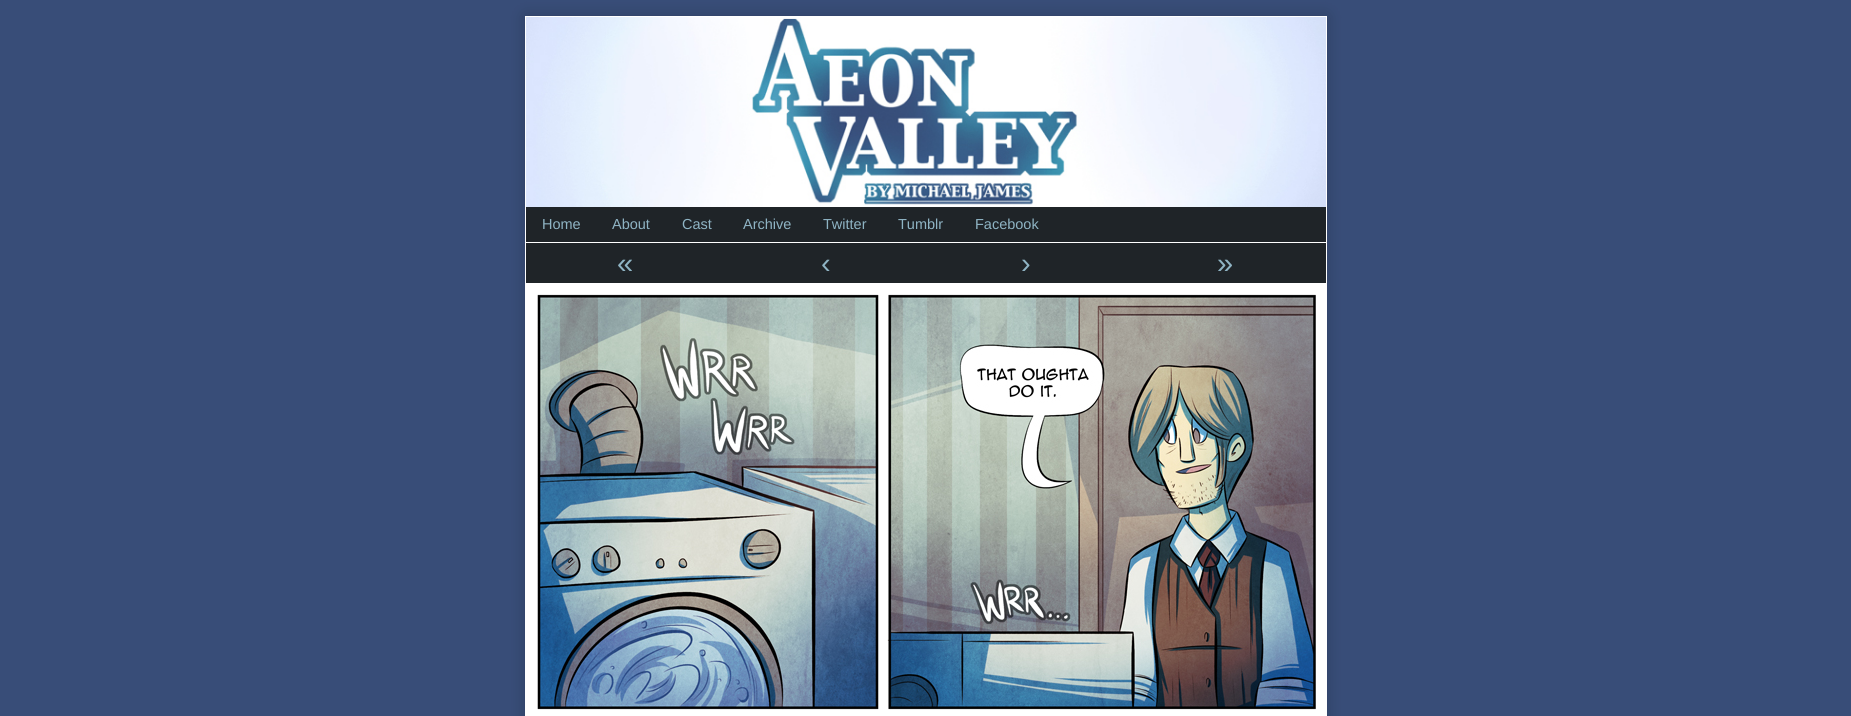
import math
import cairo



def rounded_rect(context, x, y, w, h, r):
    context.new_sub_path()
    for i, (u, v) in enumerate([(x + w - r, y + h - r), (x + r, y + h - r), (x + r, y + r), (x + w - r, y + r)]):
        context.arc(u, v, r, i * math.pi / 2, (i + 1) * math.pi / 2)
    context.close_path()


def draw_shadow(context, x, y, w, h, r, blur, alpha):
    context.push_group_with_content(cairo.Content.ALPHA)
    context.set_operator(cairo.Operator.SOURCE)
    for i in range(15, -16, -2):
        e = blur * i / 6
        if min(w, h) + 2 * e > 0:
            context.set_source_rgba(0, 0, 0, alpha * math.erfc((i - 1) / 8.5) / 2)
            rounded_rect(context, x - e, y - e, w + 2 * e, h + 2 * e, max(0, min(r + e + blur * .6, min(w, h) / 2 + e)))
            context.fill()
    context.mask(context.pop_group())


def draw_image(context, path, x, y, w, h):
    context.save()
    context.set_source_surface(cairo.ImageSurface.create_from_png(path), x, y)
    context.rectangle(x, y, w, h)
    context.fill()
    context.restore()


def draw(context):
    context.set_source_rgb(56 / 255, 77 / 255, 120 / 255)
    context.paint()
    context.set_source_rgb(0, 0, 0)
    draw_shadow(context, 525, 16, 802, 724, 0, 8, 0.2)
    context.set_source_rgb(1, 1, 1)
    context.rectangle(525, 16, 802, 700)
    context.fill()
    draw_image(context, "images/1.png", 526, 17, 800, 190)
    context.set_source_rgb(31 / 255, 36 / 255, 40 / 255)
    context.rectangle(526, 207, 800, 35)
    context.fill()
    context.rectangle(526, 243, 800, 40)
    context.fill()
    draw_image(context, "images/2.png", 537, 294, 779, 416)
    context.select_font_face("Liberation Sans")
    context.set_font_size(14.5)
    context.set_source_rgb(143 / 255, 180 / 255, 196 / 255)
    context.move_to(542, 229)
    context.show_text("Home")
    context.move_to(612, 229)
    context.show_text("About")
    context.move_to(682, 229)
    context.show_text("Cast")
    context.move_to(743, 229)
    context.show_text("Archive")
    context.move_to(823, 229)
    context.show_text("Twitter")
    context.move_to(898, 229)
    context.show_text("Tumblr")
    context.move_to(975, 229)
    context.show_text("Facebook")
    context.set_font_size(29)
    context.move_to(617, 273)
    context.show_text("«")
    context.move_to(821, 273)
    context.show_text("‹")
    context.move_to(1021, 273)
    context.show_text("›")
    context.move_to(1217, 273)
    context.show_text("»")


surface = cairo.ImageSurface(cairo.Format.RGB24, 1851, 716)
context = cairo.Context(surface)
options = cairo.FontOptions()
options.set_hint_metrics(cairo.HintMetrics.OFF)
options.set_hint_style(cairo.HintStyle.NONE)
context.set_font_options(options)
context.set_miter_limit(4)
draw(context)
surface.write_to_png("out.png")
